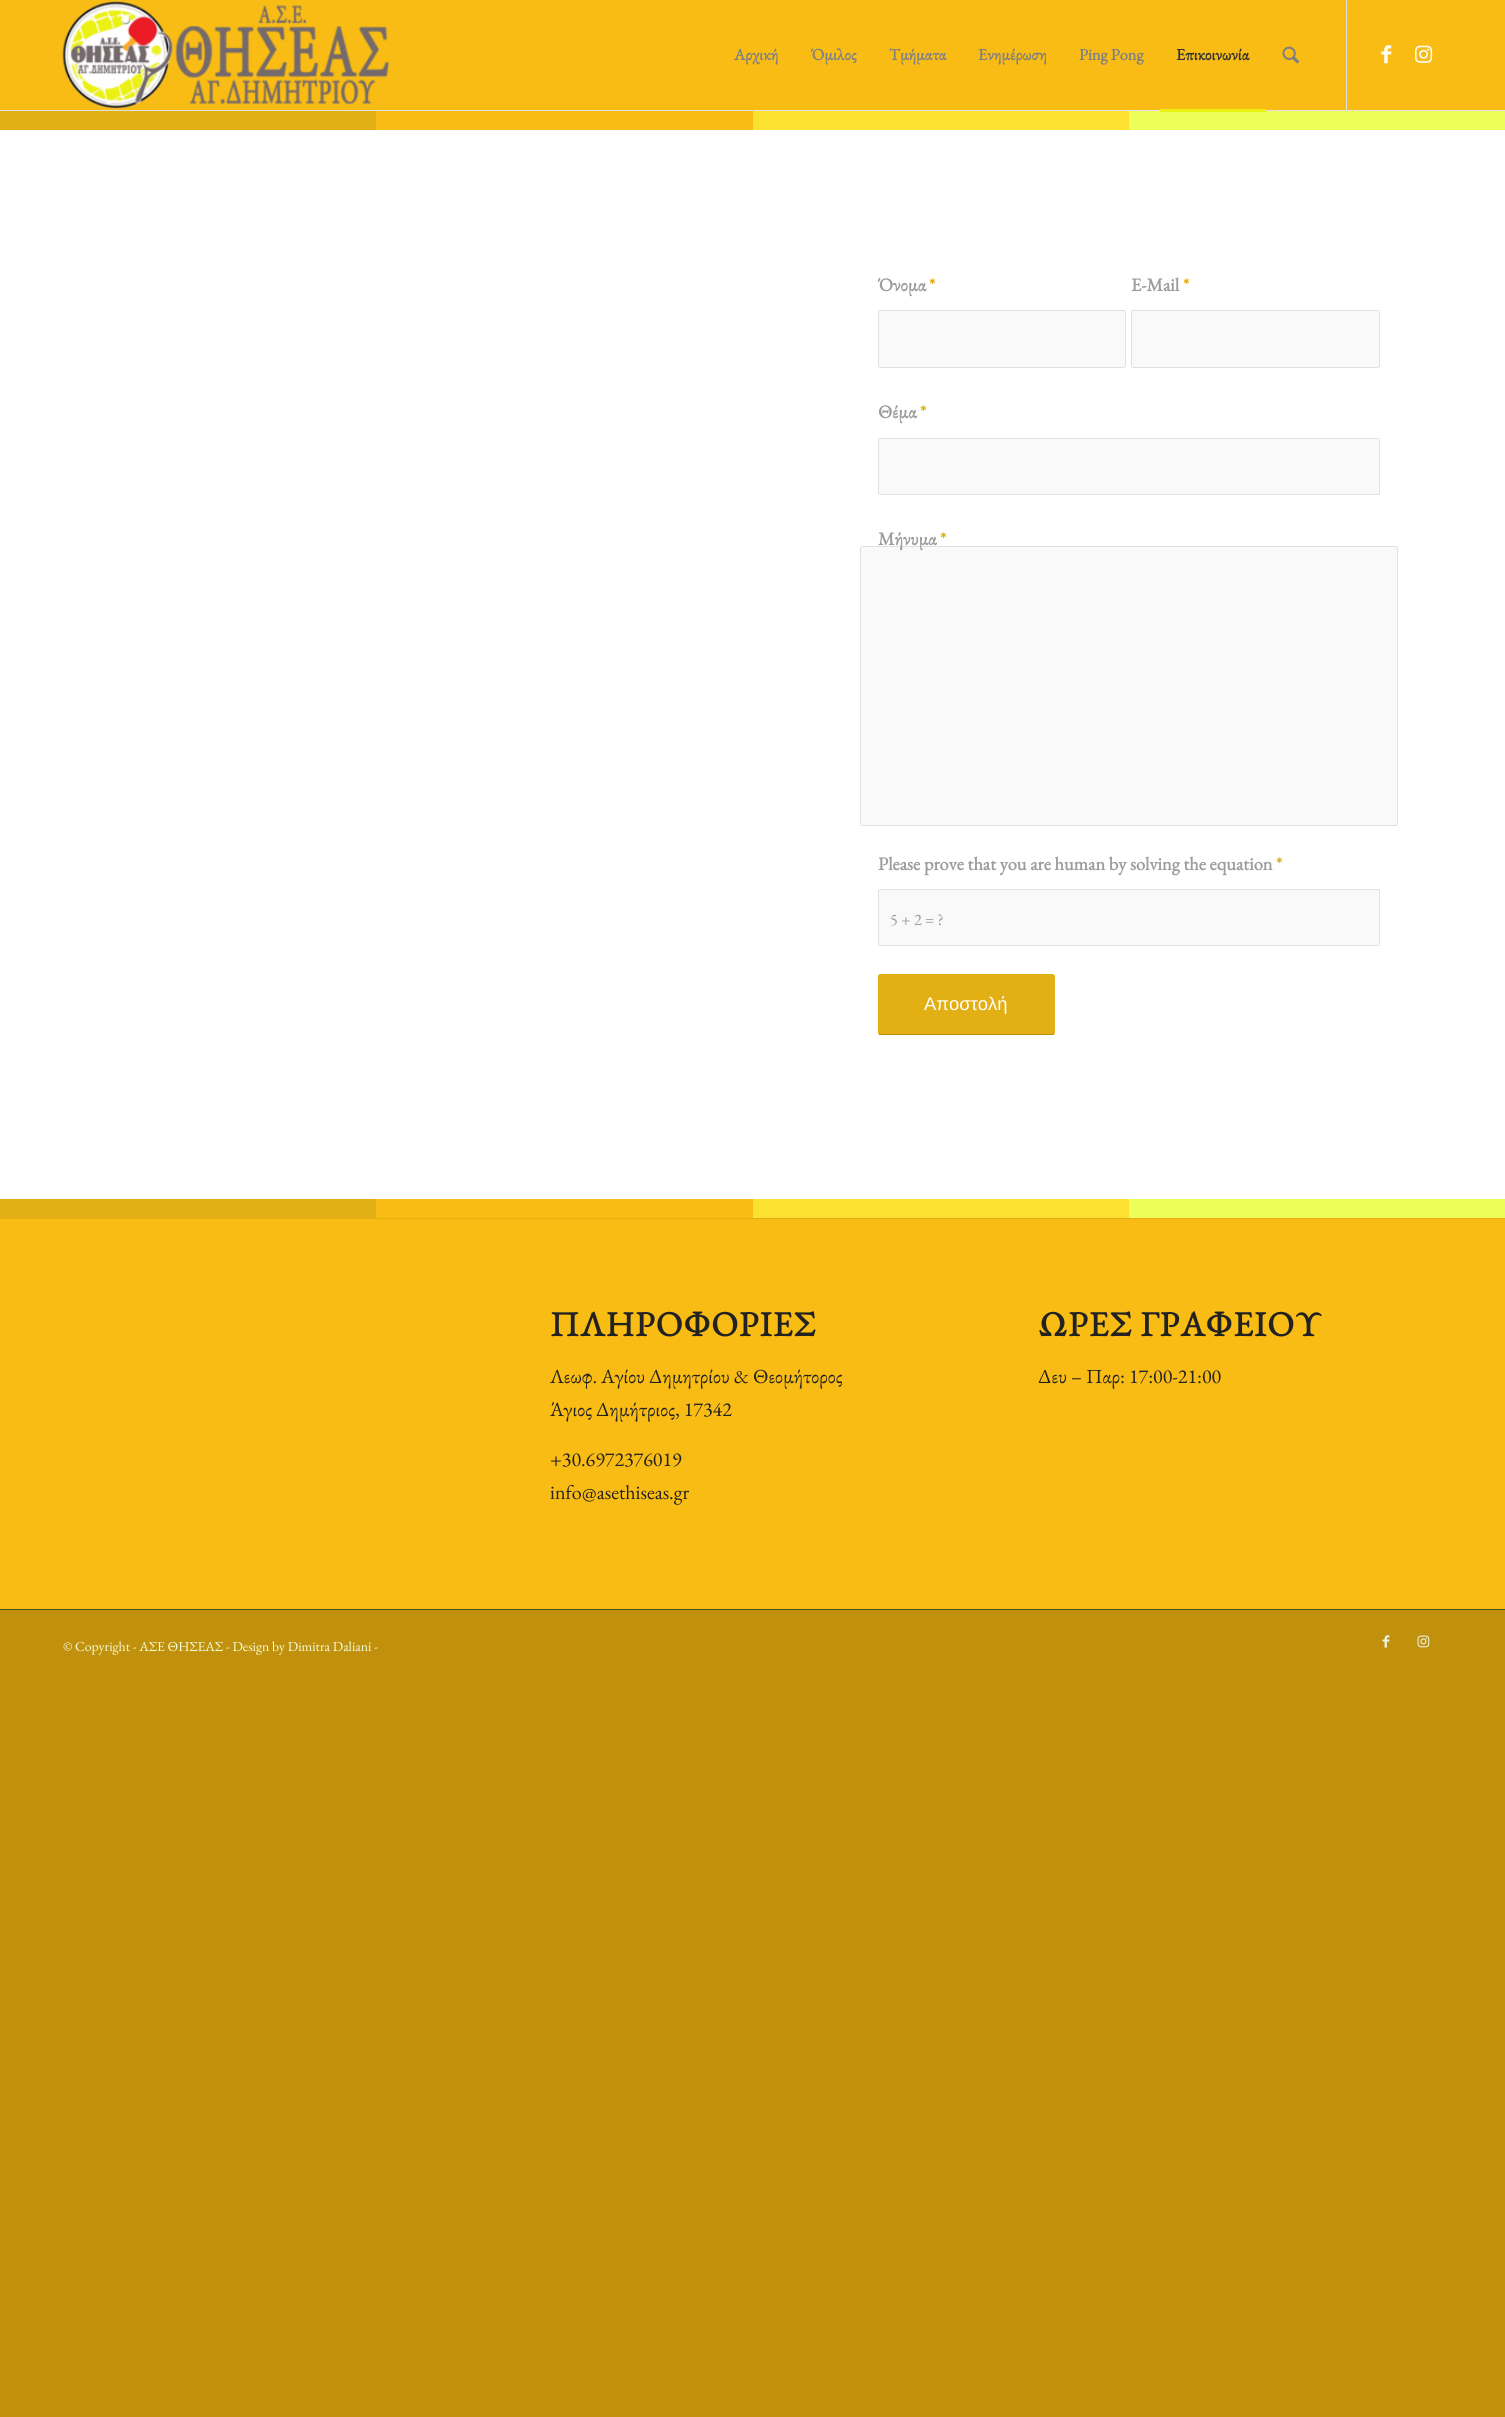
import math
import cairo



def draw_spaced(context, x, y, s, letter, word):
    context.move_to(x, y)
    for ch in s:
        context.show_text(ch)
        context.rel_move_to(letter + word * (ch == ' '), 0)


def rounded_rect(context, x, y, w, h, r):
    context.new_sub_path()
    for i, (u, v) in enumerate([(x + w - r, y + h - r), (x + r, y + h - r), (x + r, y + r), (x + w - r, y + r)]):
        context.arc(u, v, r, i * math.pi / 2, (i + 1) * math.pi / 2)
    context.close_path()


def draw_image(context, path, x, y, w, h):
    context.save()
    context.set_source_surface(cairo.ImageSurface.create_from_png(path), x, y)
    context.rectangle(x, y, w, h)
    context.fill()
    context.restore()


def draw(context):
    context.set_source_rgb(193 / 255, 145 / 255, 13 / 255)
    context.paint()
    context.set_source_rgb(249 / 255, 188 / 255, 20 / 255)
    context.rectangle(0, 0, 1505, 110)
    context.fill()
    context.set_source_rgb(225 / 255, 225 / 255, 225 / 255)
    context.rectangle(0, 110, 1505, 1)
    context.fill()
    draw_image(context, "images/1.png", 62, 1, 327, 108)
    context.rectangle(1346, 0, 1, 110)
    context.fill()
    context.set_source_rgb(237 / 255, 254 / 255, 90 / 255)
    context.rectangle(1129, 111, 376, 19)
    context.fill()
    context.set_source_rgb(234 / 255, 241 / 255, 19 / 255)
    context.rectangle(1160, 109, 106, 3)
    context.fill()
    draw_image(context, "images/2.png", 1282, 46, 18, 18)
    draw_image(context, "images/3.png", 1381, 45, 11, 19)
    draw_image(context, "images/4.png", 1415, 45, 18, 18)
    context.set_source_rgb(249 / 255, 188 / 255, 20 / 255)
    context.rectangle(0, 1219, 1505, 390)
    context.fill()
    context.set_source_rgb(226 / 255, 175 / 255, 21 / 255)
    context.rectangle(0, 111, 376, 19)
    context.fill()
    context.set_source_rgb(249 / 255, 188 / 255, 20 / 255)
    context.rectangle(376, 111, 377, 19)
    context.fill()
    context.set_source_rgb(252 / 255, 225 / 255, 48 / 255)
    context.rectangle(753, 111, 376, 19)
    context.fill()
    context.set_source_rgb(1, 1, 1)
    context.rectangle(0, 130, 1505, 1069)
    context.fill()
    context.set_source_rgb(249 / 255, 249 / 255, 249 / 255)
    rounded_rect(context, 878.5, 310.5, 247, 57, 2)
    context.fill_preserve()
    context.set_source_rgb(225 / 255, 225 / 255, 225 / 255)
    context.set_line_width(1)
    context.stroke()
    context.set_source_rgb(249 / 255, 249 / 255, 249 / 255)
    rounded_rect(context, 1131.5, 310.5, 248, 57, 2)
    context.fill_preserve()
    context.set_source_rgb(225 / 255, 225 / 255, 225 / 255)
    context.stroke()
    context.set_source_rgb(249 / 255, 249 / 255, 249 / 255)
    rounded_rect(context, 878.5, 438.5, 501, 56, 2)
    context.fill_preserve()
    context.set_source_rgb(225 / 255, 225 / 255, 225 / 255)
    context.stroke()
    context.set_source_rgb(249 / 255, 249 / 255, 249 / 255)
    rounded_rect(context, 860.5, 546.5, 537, 279, 2)
    context.fill_preserve()
    context.set_source_rgb(225 / 255, 225 / 255, 225 / 255)
    context.stroke()
    context.set_source_rgb(249 / 255, 249 / 255, 249 / 255)
    rounded_rect(context, 878.5, 889.5, 501, 56, 2)
    context.fill_preserve()
    context.set_source_rgb(225 / 255, 225 / 255, 225 / 255)
    context.stroke()
    context.set_source_rgb(226 / 255, 175 / 255, 21 / 255)
    rounded_rect(context, 878, 974, 177, 61, 2.5)
    context.fill()
    context.set_source_rgb(192 / 255, 141 / 255, 3 / 255)
    context.rectangle(879, 1034, 175, 1)
    context.fill()
    context.set_source_rgb(226 / 255, 175 / 255, 21 / 255)
    context.rectangle(0, 1199, 376, 19)
    context.fill()
    context.set_source_rgb(249 / 255, 188 / 255, 20 / 255)
    context.rectangle(376, 1199, 377, 19)
    context.fill()
    context.set_source_rgb(252 / 255, 225 / 255, 48 / 255)
    context.rectangle(753, 1199, 376, 19)
    context.fill()
    context.set_source_rgb(237 / 255, 254 / 255, 90 / 255)
    context.rectangle(1129, 1199, 376, 19)
    context.fill()
    context.set_source_rgb(226 / 255, 175 / 255, 21 / 255)
    context.rectangle(0, 1218, 1505, 1)
    context.fill()
    context.set_source_rgb(66 / 255, 87 / 255, 25 / 255)
    context.rectangle(0, 1609, 1505, 1)
    context.fill()
    draw_image(context, "images/5.png", 1382, 1635, 8, 13)
    draw_image(context, "images/6.png", 1417, 1635, 13, 13)
    context.select_font_face("EB Garamond", cairo.FontSlant.NORMAL, cairo.FontWeight.BOLD)
    context.set_font_size(16.25)
    context.set_source_rgb(128 / 255, 128 / 255, 128 / 255)
    context.move_to(734, 60)
    context.show_text("Αρχική")
    context.move_to(811, 60)
    context.show_text("Όμιλος")
    context.move_to(889, 60)
    context.show_text("Τμήματα")
    context.move_to(978, 60)
    context.show_text("Ενημέρωση")
    context.move_to(1079, 60)
    context.show_text("Ping Pong")
    context.set_source_rgb(51 / 255, 51 / 255, 51 / 255)
    context.move_to(1176, 60)
    context.show_text("Επικοινωνία")
    context.set_font_size(18.4)
    context.set_source_rgb(156 / 255, 156 / 255, 156 / 255)
    context.move_to(878, 291)
    context.show_text("Όνομα")
    context.set_source_rgb(226 / 255, 175 / 255, 21 / 255)
    context.move_to(929, 291)
    context.show_text("*")
    context.set_source_rgb(156 / 255, 156 / 255, 156 / 255)
    context.move_to(1131, 291)
    context.show_text("E-Mail")
    context.set_source_rgb(226 / 255, 175 / 255, 21 / 255)
    context.move_to(1183, 291)
    context.show_text("*")
    context.set_source_rgb(156 / 255, 156 / 255, 156 / 255)
    context.move_to(878, 418)
    context.show_text("Θέμα")
    context.set_source_rgb(226 / 255, 175 / 255, 21 / 255)
    context.move_to(920, 418)
    context.show_text("*")
    context.set_source_rgb(156 / 255, 156 / 255, 156 / 255)
    context.move_to(878, 545)
    context.show_text("Μήνυμα")
    context.set_source_rgb(226 / 255, 175 / 255, 21 / 255)
    context.move_to(940, 545)
    context.show_text("*")
    context.set_source_rgb(156 / 255, 156 / 255, 156 / 255)
    context.move_to(878, 870)
    context.show_text("Please prove that you are human by solving the equation")
    context.set_source_rgb(226 / 255, 175 / 255, 21 / 255)
    context.move_to(1276, 870)
    context.show_text("*")
    context.select_font_face("EB Garamond")
    context.set_font_size(16.25)
    context.set_source_rgb(156 / 255, 156 / 255, 156 / 255)
    context.move_to(890, 925)
    context.show_text("5 + 2 = ?")
    context.select_font_face("Liberation Sans")
    context.set_font_size(18.4)
    context.set_source_rgb(1, 1, 1)
    context.move_to(924, 1010)
    context.show_text("Αποστολή")
    context.select_font_face("EB Garamond", cairo.FontSlant.NORMAL, cairo.FontWeight.BOLD)
    context.set_font_size(35)
    context.set_source_rgb(34 / 255, 34 / 255, 34 / 255)
    draw_spaced(context, 550, 1336, "ΠΛΗΡΟΦΟΡΙΕΣ", 1.25, 0)
    context.select_font_face("EB Garamond")
    context.set_font_size(20)
    context.move_to(550, 1383)
    context.show_text("Λεωφ. Αγίου Δημητρίου & Θεομήτορος")
    context.move_to(550, 1416)
    context.show_text("Άγιος Δημήτριος, 17342")
    context.move_to(550, 1466)
    context.show_text("+30.6972376019")
    context.move_to(550, 1499)
    context.show_text("info@asethiseas.gr")
    context.select_font_face("EB Garamond", cairo.FontSlant.NORMAL, cairo.FontWeight.BOLD)
    context.set_font_size(35)
    draw_spaced(context, 1038, 1336, "ΩΡΕΣ ΓΡΑΦΕΙΟΥ", 1.25, 0)
    context.select_font_face("EB Garamond")
    context.set_font_size(20)
    context.move_to(1038, 1383)
    context.show_text("Δευ – Παρ: 17:00-21:00")
    context.set_font_size(13.75)
    context.set_source_rgb(243 / 255, 1, 222 / 255)
    context.move_to(63, 1651)
    context.show_text("© Copyright - ΑΣΕ ΘΗΣΕΑΣ - Design by Dimitra Daliani -")


surface = cairo.ImageSurface(cairo.Format.RGB24, 1505, 2417)
context = cairo.Context(surface)
options = cairo.FontOptions()
options.set_hint_metrics(cairo.HintMetrics.OFF)
options.set_hint_style(cairo.HintStyle.NONE)
context.set_font_options(options)
context.set_miter_limit(4)
draw(context)
surface.write_to_png("out.png")
